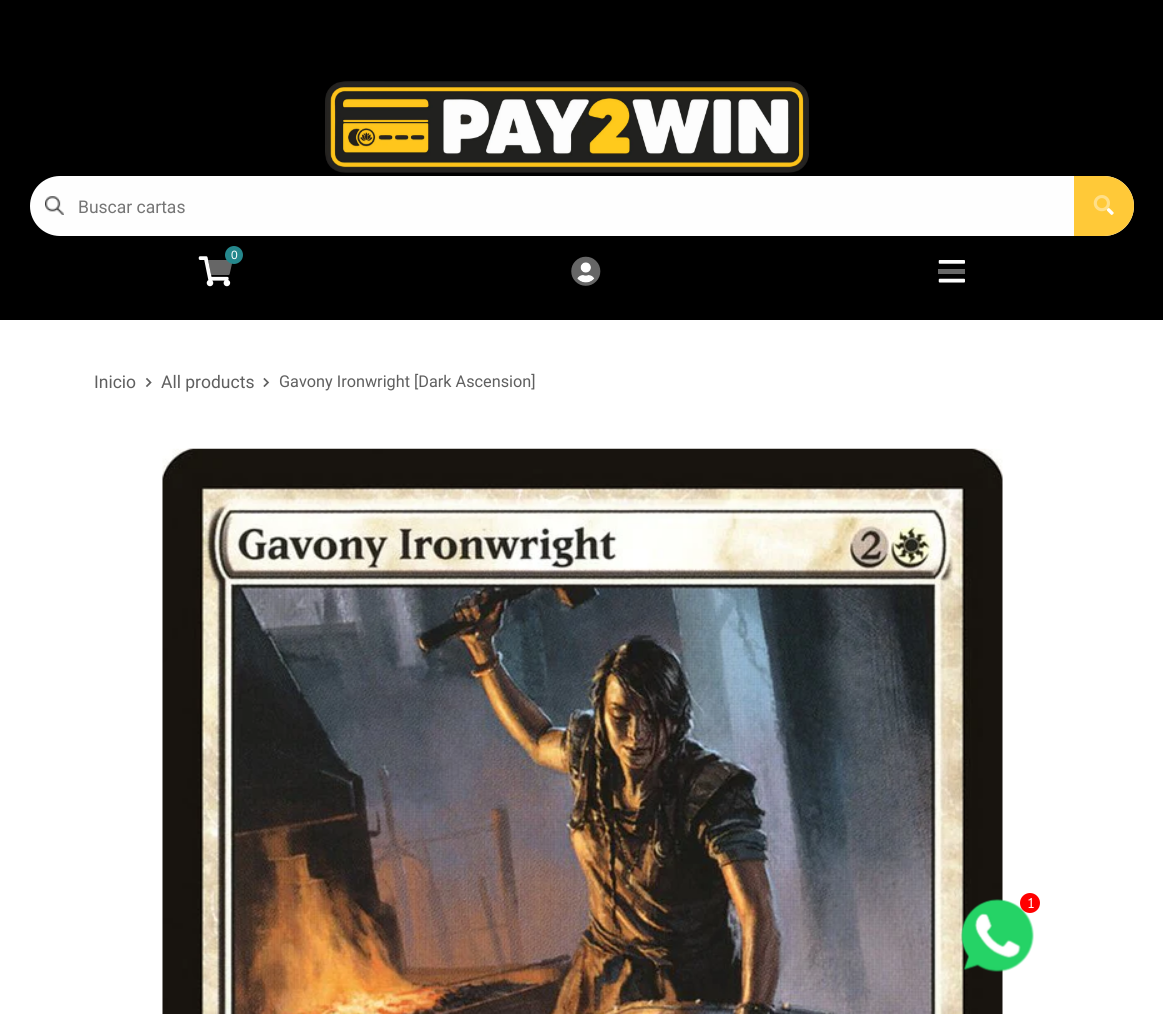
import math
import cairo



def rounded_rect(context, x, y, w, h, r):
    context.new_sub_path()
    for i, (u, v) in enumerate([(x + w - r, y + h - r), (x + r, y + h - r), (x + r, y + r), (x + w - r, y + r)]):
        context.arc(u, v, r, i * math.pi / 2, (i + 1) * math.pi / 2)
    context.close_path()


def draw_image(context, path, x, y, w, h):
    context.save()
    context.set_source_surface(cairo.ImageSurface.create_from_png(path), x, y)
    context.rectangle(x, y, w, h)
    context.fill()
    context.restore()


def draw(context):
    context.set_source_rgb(1, 1, 1)
    context.paint()
    context.set_source_rgb(0, 0, 0)
    context.rectangle(0, 0, 1163, 320)
    context.fill()
    draw_image(context, "images/1.png", 325, 81, 484, 92)
    context.set_source_rgb(254 / 255, 254 / 255, 254 / 255)
    rounded_rect(context, 30, 176, 1104, 60, 30)
    context.fill()
    draw_image(context, "images/2.png", 45, 196, 19, 19)
    context.set_source_rgb(1, 201 / 255, 56 / 255)
    context.new_path()
    context.move_to(1074, 176)
    context.line_to(1104, 176)
    context.curve_to(1120.5, 176, 1134, 189.5, 1134, 206)
    context.curve_to(1134, 222.5, 1120.5, 236, 1104, 236)
    context.line_to(1074, 236)
    context.close_path()
    context.fill()
    draw_image(context, "images/4.png", 1106, 208, 8, 7)
    draw_image(context, "images/3.png", 1093, 195, 17, 17)
    draw_image(context, "images/5.png", 198, 256, 33, 31)
    draw_image(context, "images/6.png", 208, 260, 24, 15)
    context.set_source_rgb(37 / 255, 135 / 255, 140 / 255)
    context.arc(234, 255, 9, 0, 2 * math.pi)
    context.fill()
    draw_image(context, "images/8.png", 577, 262, 18, 21)
    draw_image(context, "images/7.png", 571, 256, 30, 30)
    draw_image(context, "images/9.png", 938, 260, 27, 23)
    context.set_source_rgb(102 / 255, 102 / 255, 102 / 255)
    context.rectangle(938, 269, 27, 5)
    context.fill()
    context.new_path()
    context.move_to(147, 379)
    context.line_to(150.5, 382.5)
    context.line_to(147, 386)
    context.set_source_rgb(95 / 255, 95 / 255, 95 / 255)
    context.set_line_width(1.7)
    context.set_line_cap(cairo.LineCap.SQUARE)
    context.stroke()
    context.new_path()
    context.move_to(264.5, 379)
    context.line_to(268, 382.5)
    context.line_to(264.5, 386)
    context.stroke()
    draw_image(context, "images/10.png", 162, 448, 841, 566)
    draw_image(context, "images/11.png", 961, 899, 73, 73)
    context.set_source_rgb(1, 0, 0)
    context.arc(1030, 903, 10, 0, 2 * math.pi)
    context.fill()
    context.select_font_face("Roboto")
    context.set_font_size(17.5)
    context.set_source_rgb(117 / 255, 117 / 255, 117 / 255)
    context.move_to(78, 213)
    context.show_text("Buscar cartas")
    context.select_font_face("Liberation Sans")
    context.set_font_size(12)
    context.set_source_rgb(1, 1, 1)
    context.move_to(231, 259)
    context.show_text("0")
    context.select_font_face("Roboto")
    context.set_font_size(17.5)
    context.set_source_rgb(95 / 255, 95 / 255, 95 / 255)
    context.move_to(94, 388)
    context.show_text("Inicio")
    context.move_to(161, 388)
    context.show_text("All products")
    context.set_font_size(16.25)
    context.move_to(279, 387)
    context.show_text("Gavony Ironwright [Dark Ascension]")
    context.select_font_face("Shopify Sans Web")
    context.set_font_size(14)
    context.set_source_rgb(1, 1, 1)
    context.move_to(1028, 908)
    context.show_text("1")


surface = cairo.ImageSurface(cairo.Format.RGB24, 1163, 1014)
context = cairo.Context(surface)
options = cairo.FontOptions()
options.set_hint_metrics(cairo.HintMetrics.OFF)
options.set_hint_style(cairo.HintStyle.NONE)
context.set_font_options(options)
context.set_miter_limit(4)
draw(context)
surface.write_to_png("out.png")
